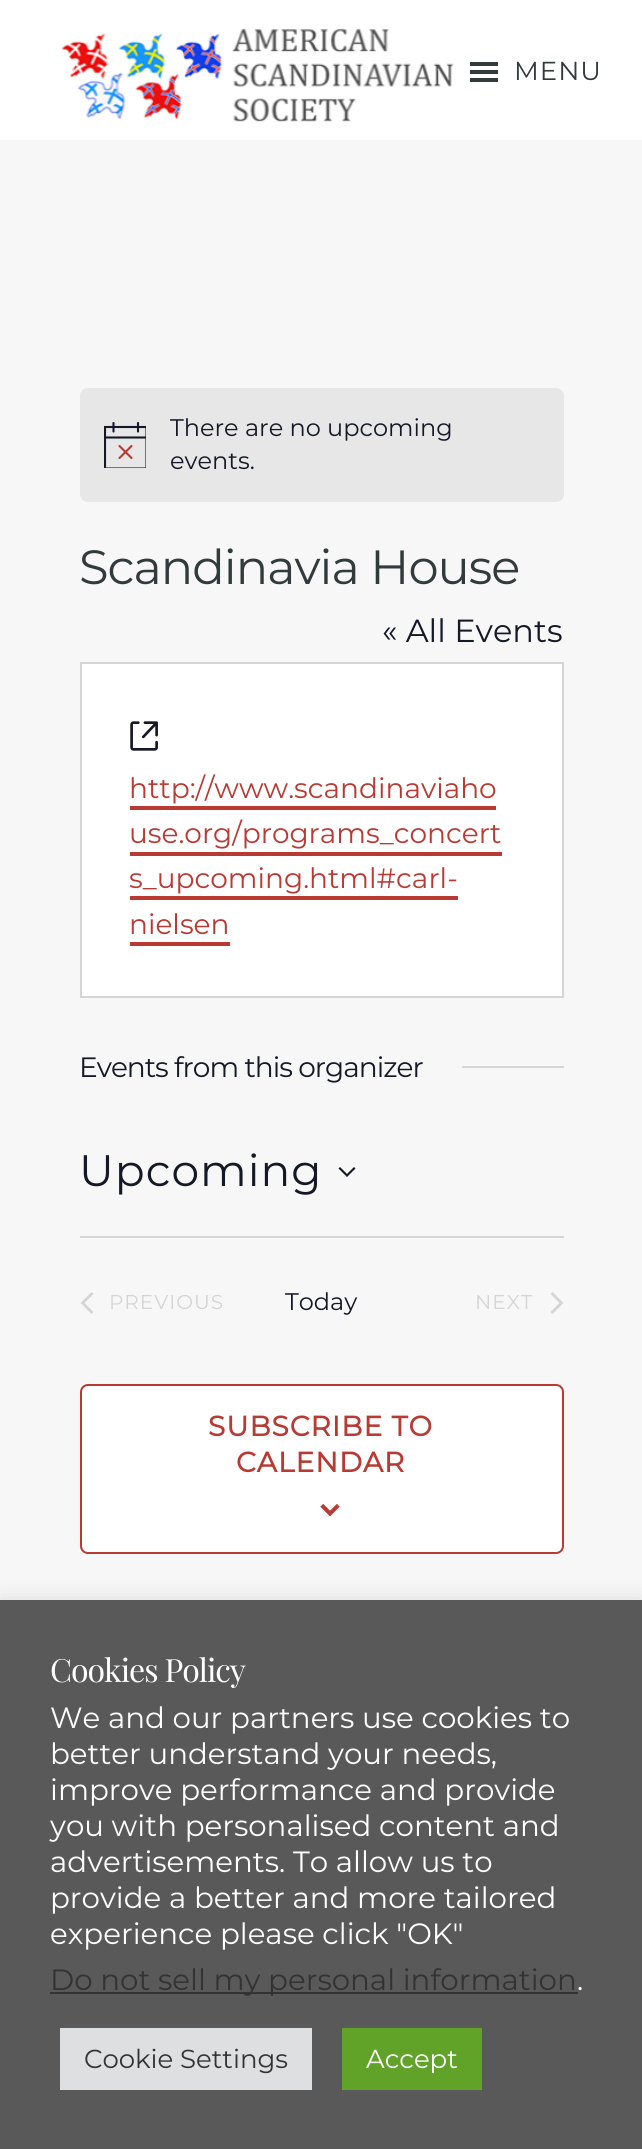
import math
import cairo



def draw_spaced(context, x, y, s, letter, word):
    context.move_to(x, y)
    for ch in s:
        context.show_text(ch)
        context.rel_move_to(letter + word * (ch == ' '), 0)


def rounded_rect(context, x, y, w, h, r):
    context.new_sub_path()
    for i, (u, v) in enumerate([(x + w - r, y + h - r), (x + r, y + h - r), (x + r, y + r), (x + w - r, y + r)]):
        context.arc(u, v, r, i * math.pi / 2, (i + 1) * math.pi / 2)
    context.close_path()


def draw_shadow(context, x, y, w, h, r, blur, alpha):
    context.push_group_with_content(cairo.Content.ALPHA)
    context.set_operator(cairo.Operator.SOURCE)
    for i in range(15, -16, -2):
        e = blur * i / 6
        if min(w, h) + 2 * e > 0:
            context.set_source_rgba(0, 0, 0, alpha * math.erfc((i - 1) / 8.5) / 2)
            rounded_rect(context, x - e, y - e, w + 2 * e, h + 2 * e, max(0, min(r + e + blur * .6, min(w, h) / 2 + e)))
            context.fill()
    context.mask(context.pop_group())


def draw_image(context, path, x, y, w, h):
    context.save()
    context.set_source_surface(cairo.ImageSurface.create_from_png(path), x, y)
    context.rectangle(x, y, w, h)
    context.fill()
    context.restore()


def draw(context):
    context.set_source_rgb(247 / 255, 247 / 255, 247 / 255)
    context.paint()
    context.set_source_rgb(1, 1, 1)
    context.rectangle(0, 0, 642, 140)
    context.fill()
    draw_image(context, "images/1.png", 62, 28, 392, 94)
    draw_image(context, "images/2.png", 470, 62, 28, 20)
    context.set_source_rgb(231 / 255, 231 / 255, 232 / 255)
    rounded_rect(context, 80, 388, 484, 114, 8)
    context.fill()
    context.save()
    context.rectangle(104, 422, 42, 46)
    context.clip()
    context.new_path()
    context.move_to(105, 427)
    context.line_to(146.5, 427)
    context.line_to(146.5, 468.5)
    context.line_to(105, 468.5)
    context.close_path()
    context.set_source_rgb(20 / 255, 24 / 255, 39 / 255)
    context.set_line_width(2.1)
    context.stroke()
    context.restore()
    context.new_path()
    context.move_to(119.5, 446)
    context.line_to(131.5, 458)
    context.move_to(131.5, 446)
    context.line_to(119.5, 458)
    context.set_source_rgb(185 / 255, 58 / 255, 50 / 255)
    context.set_line_width(2.1)
    context.set_line_cap(cairo.LineCap.ROUND)
    context.stroke()
    context.new_path()
    context.move_to(113.5, 423)
    context.line_to(113.5, 431.5)
    context.move_to(138, 423)
    context.line_to(138, 431.5)
    context.set_source_rgb(20 / 255, 24 / 255, 39 / 255)
    context.stroke()
    context.save()
    context.rectangle(104, 422, 42, 46)
    context.clip()
    context.new_path()
    context.move_to(105, 437.5)
    context.line_to(146.5, 437.5)
    context.set_line_cap(cairo.LineCap.SQUARE)
    context.stroke()
    context.restore()
    context.set_source_rgb(1, 1, 1)
    context.rectangle(81, 663, 482, 334)
    context.fill_preserve()
    context.set_source_rgb(213 / 255, 213 / 255, 213 / 255)
    context.set_line_width(2)
    context.set_line_cap(cairo.LineCap.BUTT)
    context.stroke()
    draw_image(context, "images/3.png", 130, 721, 28, 30)
    context.set_source_rgb(185 / 255, 58 / 255, 50 / 255)
    context.rectangle(130, 806, 366, 4)
    context.fill()
    context.rectangle(130, 852, 372, 4)
    context.fill()
    context.rectangle(130, 896, 328, 4)
    context.fill()
    context.rectangle(130, 942, 100, 4)
    context.fill()
    context.set_source_rgb(213 / 255, 213 / 255, 213 / 255)
    context.rectangle(462, 1066, 102, 2)
    context.fill()
    context.set_source_rgb(20 / 255, 24 / 255, 39 / 255)
    context.set_fill_rule(cairo.FillRule.EVEN_ODD)
    context.new_path()
    context.move_to(340, 1167)
    context.line_to(347, 1174)
    context.line_to(354, 1167)
    context.line_to(355.5, 1168.5)
    context.line_to(347, 1177)
    context.line_to(338.5, 1168.5)
    context.close_path()
    context.fill()
    context.set_source_rgb(213 / 255, 213 / 255, 213 / 255)
    context.rectangle(80, 1236, 484, 2)
    context.fill()
    context.set_fill_rule(cairo.FillRule.WINDING)
    context.new_path()
    context.move_to(93.5, 1312)
    context.line_to(91.5, 1314)
    context.line_to(80.5, 1303)
    context.line_to(91.5, 1292)
    context.line_to(93.5, 1294)
    context.line_to(84.5, 1303)
    context.close_path()
    context.fill()
    context.new_path()
    context.move_to(550.5, 1294)
    context.line_to(552.5, 1292)
    context.line_to(563.5, 1303)
    context.line_to(552.5, 1314)
    context.line_to(550.5, 1312)
    context.line_to(559.5, 1303)
    context.close_path()
    context.fill()
    context.set_source_rgb(1, 1, 1)
    rounded_rect(context, 81, 1385, 482, 168, 7)
    context.fill_preserve()
    context.set_source_rgb(185 / 255, 58 / 255, 50 / 255)
    context.stroke()
    draw_image(context, "images/4.png", 320, 1504, 20, 12)
    context.set_source_rgb(172 / 255, 171 / 255, 171 / 255)
    draw_shadow(context, 0, 1598, 642, 550, 0, 10, 0.3)
    context.set_source_rgb(89 / 255, 89 / 255, 89 / 255)
    context.rectangle(0, 1600, 642, 549)
    context.fill()
    context.set_source_rgb(51 / 255, 51 / 255, 51 / 255)
    context.rectangle(50, 1992, 528, 2)
    context.fill()
    context.set_source_rgb(222 / 255, 223 / 255, 224 / 255)
    context.rectangle(60, 2028, 252, 62)
    context.fill()
    context.set_source_rgb(97 / 255, 162 / 255, 41 / 255)
    context.rectangle(342, 2028, 140, 62)
    context.fill()
    context.select_font_face("Montserrat Thin")
    context.set_font_size(26)
    context.set_source_rgb(50 / 255, 59 / 255, 60 / 255)
    draw_spaced(context, 514, 80, "MENU", 1, 0)
    context.set_font_size(24)
    context.set_source_rgb(20 / 255, 24 / 255, 39 / 255)
    context.move_to(170, 436)
    context.show_text("There are no upcoming")
    context.move_to(170, 469)
    context.show_text("events.")
    context.set_font_size(48)
    context.set_source_rgb(50 / 255, 59 / 255, 60 / 255)
    draw_spaced(context, 79, 584, "Scandinavia House", -1, 0)
    context.set_font_size(32)
    context.set_source_rgb(20 / 255, 24 / 255, 39 / 255)
    context.move_to(382, 642)
    context.show_text("« All Events")
    context.set_font_size(28)
    context.set_source_rgb(185 / 255, 58 / 255, 50 / 255)
    context.move_to(129, 798)
    context.show_text("http://www.scandinaviaho")
    context.move_to(129, 843)
    context.show_text("use.org/programs_concert")
    context.move_to(129, 888)
    context.show_text("s_upcoming.html#carl-")
    context.move_to(129, 934)
    context.show_text("nielsen")
    context.set_source_rgb(20 / 255, 24 / 255, 39 / 255)
    draw_spaced(context, 79, 1077, "Events from this organizer", -1, 0)
    context.set_font_size(44)
    draw_spaced(context, 79, 1186, "Upcoming", 1, 0)
    context.set_font_size(20)
    context.set_source_rgb(213 / 255, 213 / 255, 213 / 255)
    draw_spaced(context, 109, 1309, "PREVIOUS", 1, 0)
    context.set_font_size(24)
    context.set_source_rgb(20 / 255, 24 / 255, 39 / 255)
    context.move_to(285, 1310)
    context.show_text("Today")
    context.set_font_size(20)
    context.set_source_rgb(213 / 255, 213 / 255, 213 / 255)
    draw_spaced(context, 475, 1309, "NEXT", 1, 0)
    context.select_font_face("Montserrat", cairo.FontSlant.NORMAL, cairo.FontWeight.BOLD)
    context.set_font_size(28)
    context.set_source_rgb(185 / 255, 58 / 255, 50 / 255)
    draw_spaced(context, 208, 1436, "SUBSCRIBE TO", 1, 0)
    draw_spaced(context, 236, 1472, "CALENDAR", 1, 0)
    context.select_font_face("Playfair Display")
    context.set_font_size(32)
    context.set_source_rgb(1, 1, 1)
    draw_spaced(context, 50, 1682, "Cookies Policy", -1, 0)
    context.select_font_face("Montserrat Thin")
    context.set_font_size(29.3)
    context.move_to(50, 1728)
    context.show_text("We and our partners use cookies to")
    context.move_to(50, 1764)
    context.show_text("better understand your needs,")
    context.move_to(50, 1800)
    context.show_text("improve performance and provide")
    context.move_to(50, 1836)
    context.show_text("you with personalised content and")
    context.move_to(50, 1872)
    context.show_text("advertisements. To allow us to")
    context.move_to(50, 1908)
    context.show_text("provide a better and more tailored")
    context.move_to(50, 1944)
    context.show_text("experience please click \"OK\"")
    context.set_source_rgb(51 / 255, 51 / 255, 51 / 255)
    context.move_to(50, 1990)
    context.show_text("Do not sell my personal information")
    context.set_source_rgb(1, 1, 1)
    context.move_to(577, 1990)
    context.show_text(".")
    context.set_font_size(26)
    context.set_source_rgb(51 / 255, 51 / 255, 51 / 255)
    context.move_to(84, 2068)
    context.show_text("Cookie Settings")
    context.set_source_rgb(1, 1, 1)
    context.move_to(366, 2068)
    context.show_text("Accept")


surface = cairo.ImageSurface(cairo.Format.RGB24, 642, 2149)
context = cairo.Context(surface)
options = cairo.FontOptions()
options.set_hint_metrics(cairo.HintMetrics.OFF)
options.set_hint_style(cairo.HintStyle.NONE)
context.set_font_options(options)
context.set_miter_limit(4)
draw(context)
surface.write_to_png("out.png")
